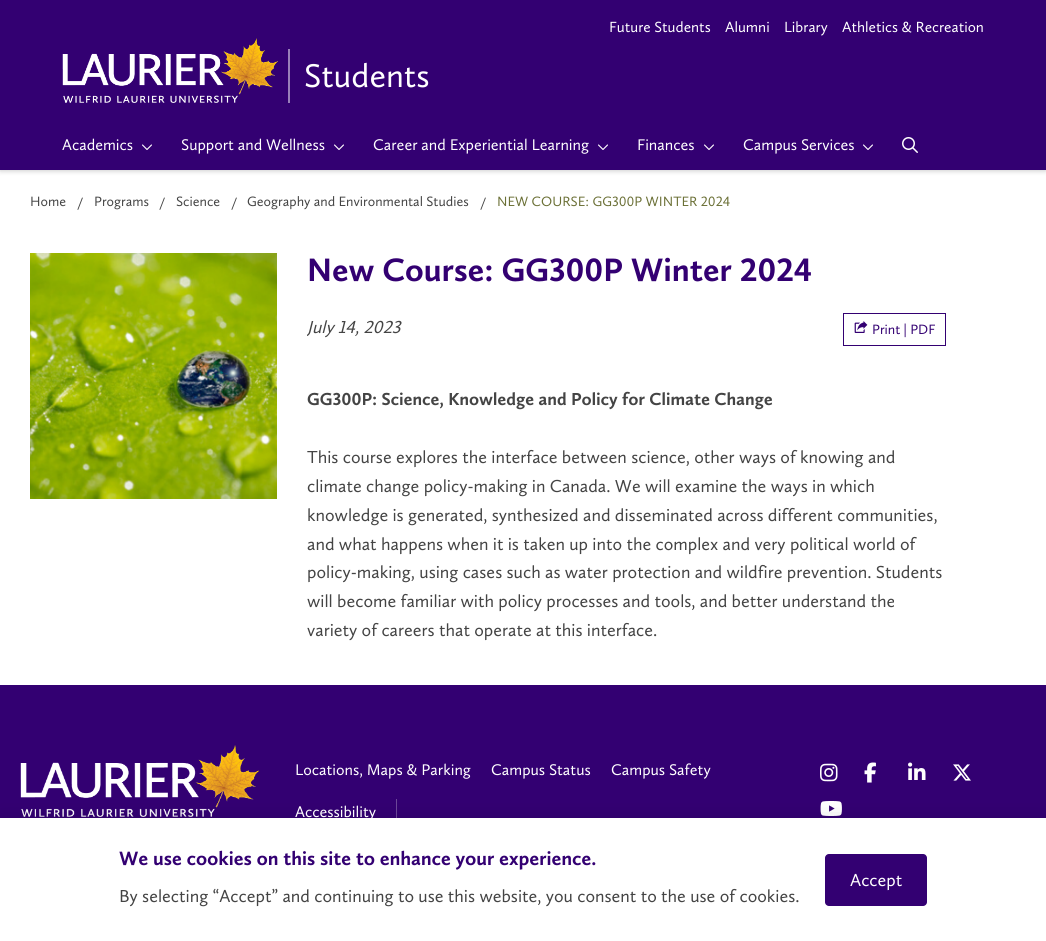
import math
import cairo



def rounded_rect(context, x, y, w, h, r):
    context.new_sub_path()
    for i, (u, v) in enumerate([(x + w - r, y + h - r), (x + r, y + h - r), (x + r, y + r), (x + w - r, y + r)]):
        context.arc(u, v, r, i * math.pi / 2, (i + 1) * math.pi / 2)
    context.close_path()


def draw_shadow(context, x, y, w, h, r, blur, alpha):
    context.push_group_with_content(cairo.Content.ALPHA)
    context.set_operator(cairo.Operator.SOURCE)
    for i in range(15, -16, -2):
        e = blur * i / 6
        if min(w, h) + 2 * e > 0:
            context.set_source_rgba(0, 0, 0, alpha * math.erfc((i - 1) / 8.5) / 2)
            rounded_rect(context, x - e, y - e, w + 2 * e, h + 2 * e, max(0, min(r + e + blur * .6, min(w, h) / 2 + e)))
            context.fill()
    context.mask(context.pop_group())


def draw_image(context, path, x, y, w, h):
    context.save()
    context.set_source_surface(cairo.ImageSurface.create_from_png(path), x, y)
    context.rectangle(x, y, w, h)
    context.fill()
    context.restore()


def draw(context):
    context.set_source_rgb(1, 1, 1)
    context.paint()
    context.set_source_rgb(0, 0, 0)
    draw_shadow(context, 0, 1, 1046, 170, 0, 2.5, 0.2)
    context.set_source_rgb(51 / 255, 0, 114 / 255)
    context.rectangle(0, 0, 1046, 170)
    context.fill()
    draw_image(context, "images/1.png", 62, 38, 216, 65)
    context.set_source_rgb(153 / 255, 128 / 255, 185 / 255)
    context.rectangle(288, 49, 2, 54)
    context.fill()
    draw_image(context, "images/2.png", 142, 144, 10, 6)
    draw_image(context, "images/2.png", 334, 144, 10, 6)
    draw_image(context, "images/2.png", 598, 144, 10, 6)
    draw_image(context, "images/2.png", 704, 144, 10, 6)
    draw_image(context, "images/2.png", 863, 144, 10, 6)
    draw_image(context, "images/3.png", 902, 137, 16, 16)
    draw_image(context, "images/4.png", 30, 253, 247, 246)
    draw_image(context, "images/5.png", 309, 257, 502, 25)
    context.rectangle(843.5, 313.5, 102, 32)
    context.set_source_rgb(51 / 255, 0, 114 / 255)
    context.set_line_width(1)
    context.stroke()
    draw_image(context, "images/6.png", 854, 321, 14, 12)
    draw_image(context, "images/7.png", 307, 391, 466, 19)
    context.rectangle(0, 685, 1046, 133)
    context.fill()
    draw_image(context, "images/8.png", 20, 745, 239, 72)
    context.set_source_rgb(108 / 255, 71 / 255, 153 / 255)
    context.rectangle(396, 799, 1, 26)
    context.fill()
    draw_image(context, "images/9.png", 820, 763, 18, 19)
    draw_image(context, "images/10.png", 864, 762, 12, 21)
    draw_image(context, "images/11.png", 908, 762, 18, 18)
    draw_image(context, "images/12.png", 953, 764, 18, 17)
    draw_image(context, "images/13.png", 820, 801, 22, 15)
    context.set_source_rgb(0, 0, 0)
    draw_shadow(context, 0, 824, 1046, 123, 0, 14.5, 0.11)
    draw_shadow(context, 0, 821, 1046, 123, 0, 7, 0.09)
    context.set_source_rgb(1, 1, 1)
    context.rectangle(0, 818, 1046, 123)
    context.fill()
    context.set_source_rgb(51 / 255, 0, 114 / 255)
    rounded_rect(context, 825, 854, 102, 52, 4)
    context.fill()
    draw_image(context, "images/14.png", 119, 850, 477, 20)
    context.select_font_face("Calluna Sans")
    context.set_font_size(15.25)
    context.set_source_rgb(1, 1, 1)
    context.move_to(609, 32)
    context.show_text("Future Students")
    context.move_to(725, 32)
    context.show_text("Alumni")
    context.move_to(784, 32)
    context.show_text("Library")
    context.move_to(842, 32)
    context.show_text("Athletics & Recreation")
    context.set_font_size(34)
    context.move_to(304, 87)
    context.show_text("Students")
    context.set_font_size(16)
    context.move_to(62, 150)
    context.show_text("Academics")
    context.move_to(181, 150)
    context.show_text("Support and Wellness")
    context.move_to(373, 150)
    context.show_text("Career and Experiential Learning")
    context.move_to(637, 150)
    context.show_text("Finances")
    context.move_to(743, 150)
    context.show_text("Campus Services")
    context.set_font_size(14)
    context.set_source_rgb(68 / 255, 68 / 255, 68 / 255)
    context.move_to(30, 206)
    context.show_text("Home")
    context.move_to(77, 207)
    context.show_text("/")
    context.move_to(94, 206)
    context.show_text("Programs")
    context.move_to(159, 207)
    context.show_text("/")
    context.move_to(176, 206)
    context.show_text("Science")
    context.move_to(231, 207)
    context.show_text("/")
    context.move_to(247, 206)
    context.show_text("Geography and Environmental Studies")
    context.move_to(480, 207)
    context.show_text("/")
    context.set_source_rgb(107 / 255, 112 / 255, 54 / 255)
    context.move_to(497, 206)
    context.show_text("NEW COURSE: GG300P WINTER 2024")
    context.save()
    context.rectangle(307, 313, 709, 73)
    context.clip()
    context.select_font_face("Calluna Sans", cairo.FontSlant.ITALIC)
    context.set_font_size(18)
    context.set_source_rgb(68 / 255, 68 / 255, 68 / 255)
    context.move_to(307, 333)
    context.show_text("July 14, 2023")
    context.restore()
    context.set_source_rgb(51 / 255, 0, 114 / 255)
    context.move_to(872, 334)
    context.show_text("Print | PDF")
    context.set_font_size(18)
    context.set_source_rgb(68 / 255, 68 / 255, 68 / 255)
    context.move_to(307, 463)
    context.show_text("This course explores the interface between science, other ways of knowing and")
    context.move_to(307, 492)
    context.show_text("climate change policy-making in Canada. We will examine the ways in which")
    context.move_to(307, 521)
    context.show_text("knowledge is generated, synthesized and disseminated across different communities,")
    context.move_to(307, 550)
    context.show_text("and what happens when it is taken up into the complex and very political world of")
    context.move_to(307, 578)
    context.show_text("policy-making, using cases such as water protection and wildfire prevention. Students")
    context.move_to(307, 607)
    context.show_text("will become familiar with policy processes and tools, and better understand the")
    context.move_to(307, 636)
    context.show_text("variety of careers that operate at this interface.")
    context.set_font_size(16)
    context.set_source_rgb(1, 1, 1)
    context.move_to(295, 775)
    context.show_text("Locations, Maps & Parking")
    context.move_to(491, 775)
    context.show_text("Campus Status")
    context.move_to(611, 775)
    context.show_text("Campus Safety")
    context.move_to(295, 817)
    context.show_text("Accessibility")
    context.set_font_size(18)
    context.move_to(850, 886)
    context.show_text("Accept")
    context.set_source_rgb(68 / 255, 68 / 255, 68 / 255)
    context.move_to(119, 902)
    context.show_text("By selecting “Accept” and continuing to use this website, you consent to the use of cookies.")


surface = cairo.ImageSurface(cairo.Format.RGB24, 1046, 941)
context = cairo.Context(surface)
options = cairo.FontOptions()
options.set_hint_metrics(cairo.HintMetrics.OFF)
options.set_hint_style(cairo.HintStyle.NONE)
context.set_font_options(options)
context.set_miter_limit(4)
draw(context)
surface.write_to_png("out.png")
